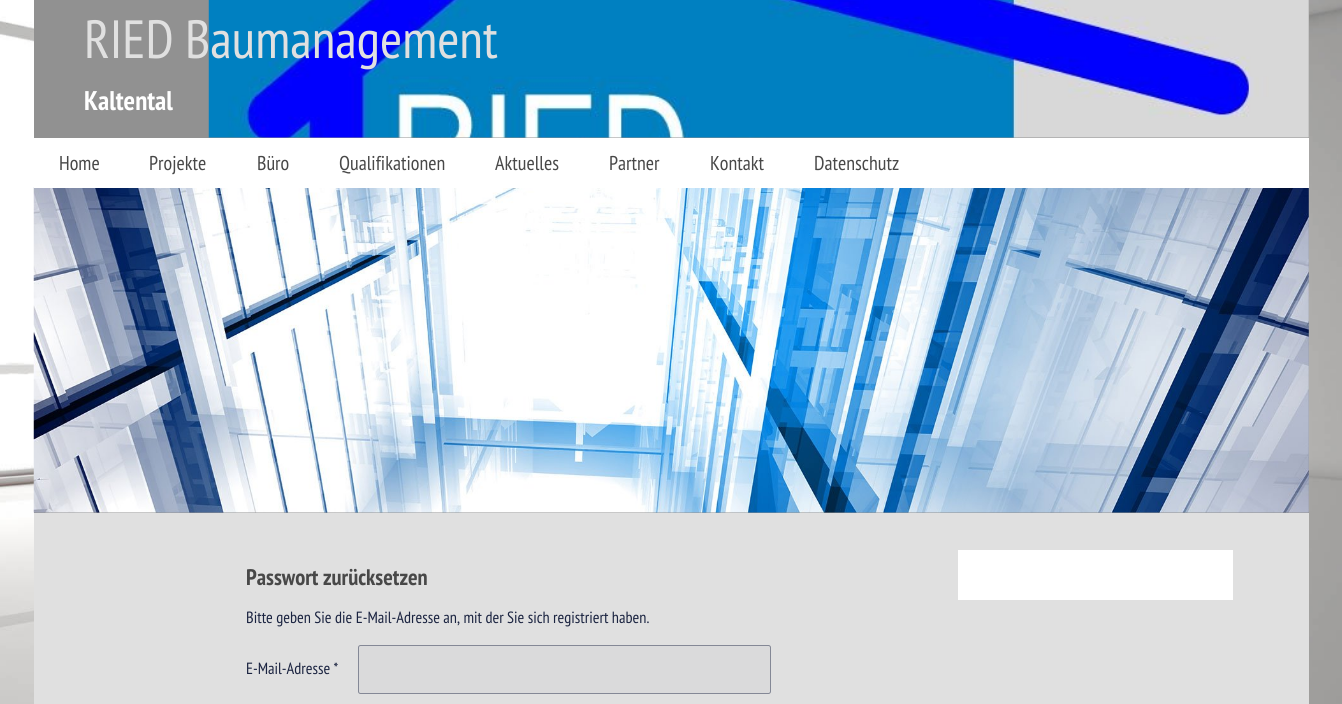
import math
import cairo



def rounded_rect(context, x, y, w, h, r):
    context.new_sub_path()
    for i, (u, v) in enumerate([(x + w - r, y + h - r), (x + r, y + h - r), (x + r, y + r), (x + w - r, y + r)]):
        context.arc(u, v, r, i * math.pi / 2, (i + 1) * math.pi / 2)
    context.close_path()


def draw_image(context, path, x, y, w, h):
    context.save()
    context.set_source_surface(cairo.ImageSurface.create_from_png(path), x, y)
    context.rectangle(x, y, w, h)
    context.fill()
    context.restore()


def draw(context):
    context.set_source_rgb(1, 1, 1)
    context.paint()
    draw_image(context, "images/1.png", 0, 0, 1342, 704)
    context.set_source_rgb(145 / 255, 145 / 255, 145 / 255)
    context.rectangle(34, 0, 1275, 138)
    context.fill()
    draw_image(context, "images/2.png", 208, 0, 1101, 138)
    context.rectangle(34, 188, 1275, 325)
    context.fill()
    draw_image(context, "images/3.png", 33, 187, 1276, 326)
    context.set_source_rgb(1, 1, 1)
    context.rectangle(34, 138, 1275, 50)
    context.fill()
    context.set_source_rgb(224 / 255, 224 / 255, 224 / 255)
    context.rectangle(34, 513, 1275, 191)
    context.fill()
    context.set_source_rgb(218 / 255, 218 / 255, 219 / 255)
    rounded_rect(context, 358.5, 645.5, 412, 48, 2)
    context.fill_preserve()
    context.set_source_rgb(132 / 255, 136 / 255, 150 / 255)
    context.set_line_width(1)
    context.stroke()
    context.set_source_rgb(1, 1, 1)
    context.rectangle(958, 550, 275, 50)
    context.fill()
    context.select_font_face("PT Sans Narrow")
    context.set_font_size(53.75)
    context.set_source_rgb(224 / 255, 224 / 255, 224 / 255)
    context.move_to(84, 58)
    context.show_text("RIED Baumanagement")
    context.select_font_face("PT Sans Narrow", cairo.FontSlant.NORMAL, cairo.FontWeight.BOLD)
    context.set_font_size(27)
    context.set_source_rgb(1, 1, 1)
    context.move_to(84, 110)
    context.show_text("Kaltental")
    context.select_font_face("PT Sans Narrow")
    context.set_font_size(20)
    context.set_source_rgb(72 / 255, 72 / 255, 72 / 255)
    context.move_to(59, 170)
    context.show_text("Home")
    context.move_to(149, 170)
    context.show_text("Projekte")
    context.move_to(257, 170)
    context.show_text("Büro")
    context.move_to(339, 170)
    context.show_text("Qualifikationen")
    context.move_to(495, 170)
    context.show_text("Aktuelles")
    context.move_to(609, 170)
    context.show_text("Partner")
    context.move_to(710, 170)
    context.show_text("Kontakt")
    context.move_to(814, 170)
    context.show_text("Datenschutz")
    context.select_font_face("PT Sans Narrow", cairo.FontSlant.NORMAL, cairo.FontWeight.BOLD)
    context.set_font_size(22.5)
    context.move_to(246, 585)
    context.show_text("Passwort zurücksetzen")
    context.select_font_face("PT Sans Narrow")
    context.set_font_size(16.25)
    context.set_source_rgb(27 / 255, 36 / 255, 65 / 255)
    context.move_to(246, 623)
    context.show_text("Bitte geben Sie die E-Mail-Adresse an, mit der Sie sich registriert haben.")
    context.move_to(246, 674)
    context.show_text("E-Mail-Adresse *")


surface = cairo.ImageSurface(cairo.Format.RGB24, 1342, 704)
context = cairo.Context(surface)
options = cairo.FontOptions()
options.set_hint_metrics(cairo.HintMetrics.OFF)
options.set_hint_style(cairo.HintStyle.NONE)
context.set_font_options(options)
context.set_miter_limit(4)
draw(context)
surface.write_to_png("out.png")
